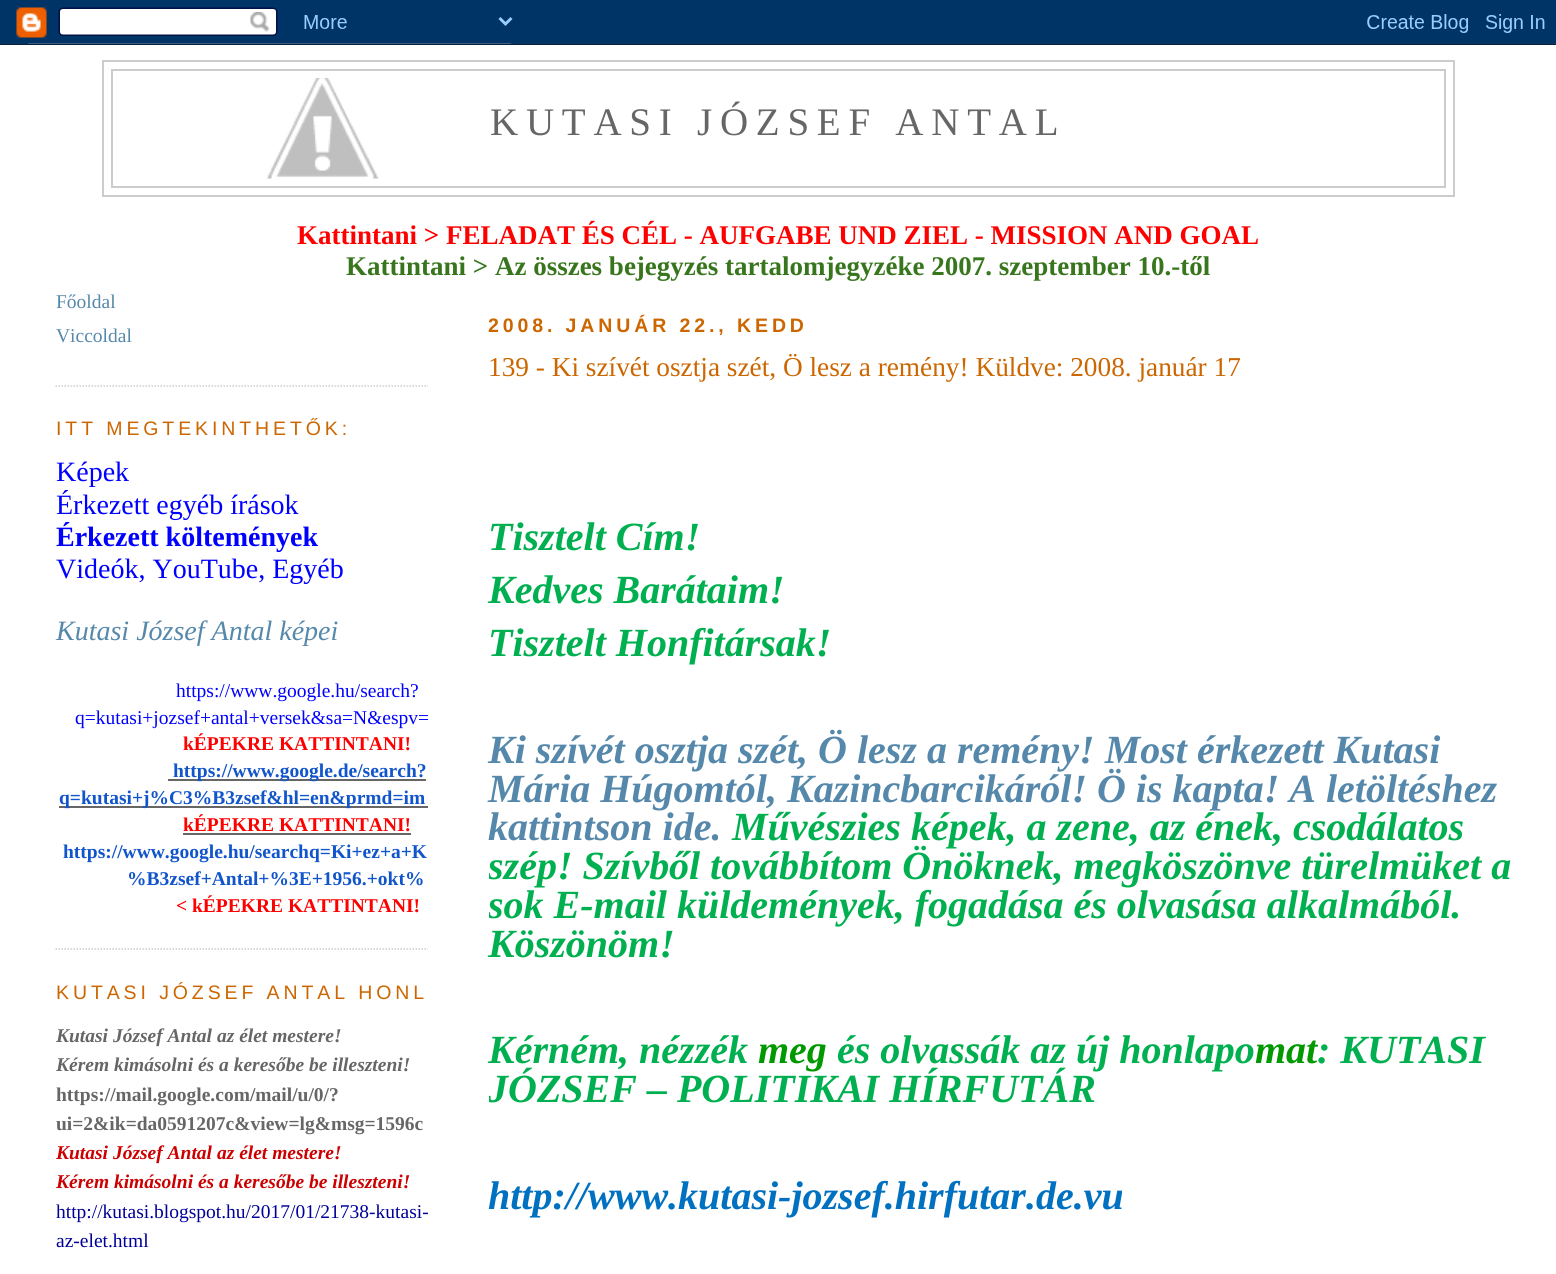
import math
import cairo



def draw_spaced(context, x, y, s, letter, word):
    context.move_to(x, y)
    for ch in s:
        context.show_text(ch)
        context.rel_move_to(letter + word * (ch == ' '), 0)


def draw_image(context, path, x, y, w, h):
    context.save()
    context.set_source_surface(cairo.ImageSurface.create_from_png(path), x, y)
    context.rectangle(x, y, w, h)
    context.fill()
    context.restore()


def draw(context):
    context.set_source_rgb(1, 1, 1)
    context.paint()
    draw_image(context, "images/1.png", 0, 0, 1556, 45)
    context.rectangle(103, 61, 1351, 135)
    context.set_source_rgb(204 / 255, 204 / 255, 204 / 255)
    context.stroke()
    context.rectangle(112, 70, 1333, 117)
    context.stroke()
    draw_image(context, "images/2.png", 267, 78, 112, 101)
    context.save()
    context.rectangle(45, 284, 383, 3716)
    context.clip()
    context.new_path()
    context.move_to(55.5, 386)
    context.line_to(538.5, 386)
    context.set_line_width(1.5)
    context.set_dash([1.5, 1.5])
    context.stroke()
    context.new_path()
    context.move_to(55.5, 949)
    context.line_to(538.5, 949)
    context.stroke()
    context.restore()
    context.set_source_rgb(102 / 255, 102 / 255, 102 / 255)
    context.rectangle(168, 779, 258, 2)
    context.fill()
    context.rectangle(59, 806, 369, 2)
    context.fill()
    context.rectangle(183, 833, 228, 2)
    context.fill()
    context.select_font_face("Liberation Serif")
    context.set_font_size(39)
    draw_spaced(context, 490, 135, "KUTASI JÓZSEF ANTAL", 7.75, 0)
    context.select_font_face("Liberation Serif", cairo.FontSlant.NORMAL, cairo.FontWeight.BOLD)
    context.set_font_size(27)
    context.set_source_rgb(1, 0, 0)
    context.move_to(297, 244)
    context.show_text("Kattintani > FELADAT ÉS CÉL - AUFGABE UND ZIEL - MISSION AND GOAL")
    context.set_source_rgb(56 / 255, 118 / 255, 29 / 255)
    context.move_to(346, 275)
    context.show_text("Kattintani > Az összes bejegyzés tartalomjegyzéke 2007. szeptember 10.-től")
    context.select_font_face("Liberation Serif")
    context.set_font_size(19.5)
    context.set_source_rgb(85 / 255, 136 / 255, 170 / 255)
    context.move_to(56, 308)
    context.show_text("Főoldal")
    context.move_to(56, 342)
    context.show_text("Viccoldal")
    context.select_font_face("Liberation Sans")
    context.set_source_rgb(204 / 255, 102 / 255, 0)
    draw_spaced(context, 56, 435, "ITT MEGTEKINTHETŐK:", 3.9, 0)
    context.select_font_face("Liberation Serif")
    context.set_font_size(28)
    context.set_source_rgb(0, 0, 1)
    context.move_to(56, 481)
    context.show_text("Képek")
    context.move_to(56, 514)
    context.show_text("Érkezett egyéb írások")
    context.select_font_face("Liberation Serif", cairo.FontSlant.NORMAL, cairo.FontWeight.BOLD)
    context.move_to(56, 546)
    context.show_text("Érkezett költemények")
    context.select_font_face("Liberation Serif")
    context.move_to(56, 578)
    context.show_text("Videók, YouTube, Egyéb")
    context.select_font_face("Liberation Serif", cairo.FontSlant.ITALIC)
    context.set_source_rgb(85 / 255, 136 / 255, 170 / 255)
    context.move_to(56, 640)
    context.show_text("Kutasi József Antal képei")
    context.select_font_face("Liberation Serif")
    context.set_font_size(19.5)
    context.set_source_rgb(0, 0, 1)
    context.move_to(176, 697)
    context.show_text("https://www.google.hu/search?")
    context.move_to(75, 724)
    context.show_text("q=kutasi+jozsef+antal+versek&sa=N&espv=")
    context.select_font_face("Liberation Serif", cairo.FontSlant.NORMAL, cairo.FontWeight.BOLD)
    context.set_source_rgb(1, 0, 0)
    context.move_to(183, 750)
    context.show_text("kÉPEKRE KATTINTANI!")
    context.set_source_rgb(17 / 255, 85 / 255, 204 / 255)
    context.move_to(173, 777)
    context.show_text("https://www.google.de/search?")
    context.move_to(59, 804)
    context.show_text("q=kutasi+j%C3%B3zsef&hl=en&prmd=im")
    context.set_source_rgb(1, 0, 0)
    context.move_to(183, 831)
    context.show_text("kÉPEKRE KATTINTANI!")
    context.set_source_rgb(17 / 255, 85 / 255, 204 / 255)
    context.move_to(63, 858)
    context.show_text("https://www.google.hu/searchq=Ki+ez+a+K")
    context.move_to(127, 885)
    context.show_text("%B3zsef+Antal+%3E+1956.+okt%")
    context.set_source_rgb(1, 0, 0)
    context.move_to(176, 912)
    context.show_text("< kÉPEKRE KATTINTANI!")
    context.select_font_face("Liberation Sans")
    context.set_source_rgb(204 / 255, 102 / 255, 0)
    draw_spaced(context, 56, 999, "KUTASI JÓZSEF ANTAL HONL", 3.9, 0)
    context.select_font_face("Liberation Serif", cairo.FontSlant.ITALIC, cairo.FontWeight.BOLD)
    context.set_source_rgb(102 / 255, 102 / 255, 102 / 255)
    context.move_to(56, 1042)
    context.show_text("Kutasi József Antal az élet mestere!")
    context.move_to(56, 1071)
    context.show_text("Kérem kimásolni és a keresőbe be illeszteni!")
    context.select_font_face("Liberation Serif", cairo.FontSlant.NORMAL, cairo.FontWeight.BOLD)
    context.move_to(56, 1101)
    context.show_text("https://mail.google.com/mail/u/0/?")
    context.move_to(56, 1130)
    context.show_text("ui=2&ik=da0591207c&view=lg&msg=1596c")
    context.select_font_face("Liberation Serif", cairo.FontSlant.ITALIC, cairo.FontWeight.BOLD)
    context.set_source_rgb(204 / 255, 0, 0)
    context.move_to(56, 1159)
    context.show_text("Kutasi József Antal az élet mestere!")
    context.move_to(56, 1188)
    context.show_text("Kérem kimásolni és a keresőbe be illeszteni!")
    context.select_font_face("Liberation Serif")
    context.set_source_rgb(0, 0, 153 / 255)
    context.move_to(56, 1218)
    context.show_text("http://kutasi.blogspot.hu/2017/01/21738-kutasi-")
    context.move_to(56, 1247)
    context.show_text("az-elet.html")
    context.select_font_face("Liberation Sans", cairo.FontSlant.NORMAL, cairo.FontWeight.BOLD)
    context.set_source_rgb(204 / 255, 102 / 255, 0)
    draw_spaced(context, 488, 332, "2008. JANUÁR 22., KEDD", 3.9, 0)
    context.select_font_face("Liberation Serif")
    context.set_font_size(27.3)
    context.move_to(488, 376)
    context.show_text("139 - Ki szívét osztja szét, Ö lesz a remény! Küldve: 2008. január 17")
    context.select_font_face("Liberation Serif", cairo.FontSlant.ITALIC, cairo.FontWeight.BOLD)
    context.set_font_size(40)
    context.set_source_rgb(0, 176 / 255, 80 / 255)
    context.move_to(488, 550)
    context.show_text("Tisztelt Cím!")
    context.move_to(488, 603)
    context.show_text("Kedves Barátaim!")
    context.move_to(488, 656)
    context.show_text("Tisztelt Honfitársak!")
    context.set_source_rgb(85 / 255, 136 / 255, 170 / 255)
    context.move_to(488, 763)
    context.show_text("Ki szívét osztja szét, Ö lesz a remény! Most érkezett Kutasi")
    context.move_to(488, 802)
    context.show_text("Mária Húgomtól, Kazincbarcikáról! Ö is kapta! A letöltéshez")
    context.move_to(488, 840)
    context.show_text("kattintson ide.")
    context.set_source_rgb(0, 176 / 255, 80 / 255)
    context.move_to(732, 840)
    context.show_text("Művészies képek, a zene, az ének, csodálatos")
    context.save()
    context.rectangle(489, 284, 1023, 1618)
    context.clip()
    context.move_to(488, 879)
    context.show_text("szép! Szívb")
    context.restore()
    context.move_to(669, 879)
    context.show_text("ől továbbítom Önöknek, megköszönve türelmüket a")
    context.save()
    context.rectangle(489, 284, 1023, 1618)
    context.clip()
    context.move_to(488, 918)
    context.show_text("sok E-mail küldemények, fogadása és olvasása alkalmából.")
    context.restore()
    context.move_to(488, 957)
    context.show_text("Köszönöm!")
    context.move_to(488, 1063)
    context.show_text("Kérném, nézzék")
    context.set_source_rgb(0, 153 / 255, 0)
    context.move_to(758, 1063)
    context.show_text("meg")
    context.set_source_rgb(0, 176 / 255, 80 / 255)
    context.move_to(837, 1063)
    context.show_text("és olvassák az új honlapo")
    context.set_source_rgb(0, 153 / 255, 0)
    context.move_to(1255, 1063)
    context.show_text("mat")
    context.set_source_rgb(0, 176 / 255, 80 / 255)
    context.move_to(1317, 1063)
    context.show_text(": KUTASI")
    context.save()
    context.rectangle(489, 284, 1023, 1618)
    context.clip()
    context.move_to(488, 1102)
    context.show_text("JÓZSEF – POLITIKAI HÍRFUTÁR")
    context.restore()
    context.set_source_rgb(0, 112 / 255, 192 / 255)
    context.move_to(488, 1209)
    context.show_text("http://www.kutasi-jozsef.hirfutar.de.vu")


surface = cairo.ImageSurface(cairo.Format.RGB24, 1556, 1274)
context = cairo.Context(surface)
options = cairo.FontOptions()
options.set_hint_metrics(cairo.HintMetrics.OFF)
options.set_hint_style(cairo.HintStyle.NONE)
context.set_font_options(options)
context.set_miter_limit(4)
draw(context)
surface.write_to_png("out.png")
